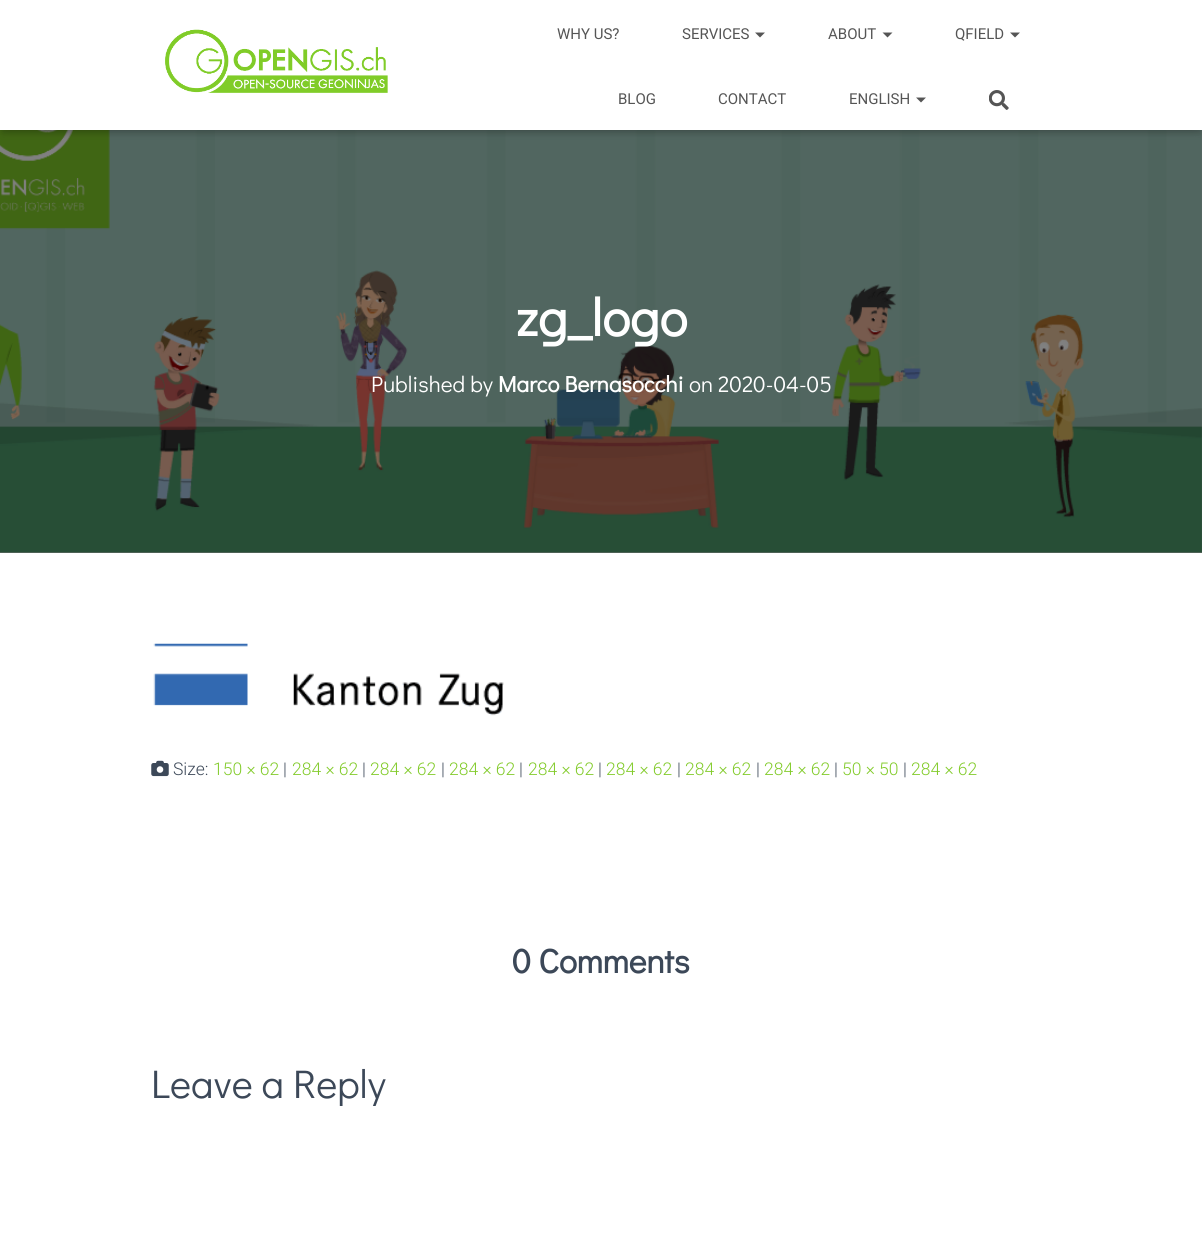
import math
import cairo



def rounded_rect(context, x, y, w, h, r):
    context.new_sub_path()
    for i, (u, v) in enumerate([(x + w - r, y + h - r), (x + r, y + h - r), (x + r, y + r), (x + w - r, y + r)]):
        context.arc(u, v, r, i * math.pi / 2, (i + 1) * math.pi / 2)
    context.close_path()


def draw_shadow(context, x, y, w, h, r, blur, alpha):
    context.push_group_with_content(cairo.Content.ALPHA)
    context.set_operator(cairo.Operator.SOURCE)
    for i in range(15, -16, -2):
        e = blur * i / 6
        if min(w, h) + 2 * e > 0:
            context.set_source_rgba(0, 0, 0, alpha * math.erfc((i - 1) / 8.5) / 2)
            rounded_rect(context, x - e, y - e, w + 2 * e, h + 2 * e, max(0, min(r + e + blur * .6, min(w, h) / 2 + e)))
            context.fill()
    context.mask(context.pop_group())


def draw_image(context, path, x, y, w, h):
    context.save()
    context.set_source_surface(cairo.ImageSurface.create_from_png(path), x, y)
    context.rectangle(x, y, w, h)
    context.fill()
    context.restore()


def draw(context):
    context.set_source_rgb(115 / 255, 115 / 255, 115 / 255)
    context.paint()
    draw_image(context, "images/3.png", 0, 130, 1202, 423)
    context.set_source_rgb(0, 0, 0)
    draw_shadow(context, 3, 8, 1197, 125, 0, 3, 0.1)
    draw_shadow(context, 0, 1, 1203, 130, 0, 6, 0.12)
    draw_shadow(context, 8, 9, 1187, 115, 0, 6, 0.42)
    context.set_source_rgb(1, 1, 1)
    context.rectangle(0, 0, 1202, 130)
    context.fill()
    draw_image(context, "images/1.png", 165, 29, 223, 64)
    context.set_source_rgb(85 / 255, 85 / 255, 85 / 255)
    context.new_path()
    context.move_to(755, 32.5)
    context.line_to(765, 32.5)
    context.line_to(760, 37.5)
    context.close_path()
    context.fill()
    context.new_path()
    context.move_to(882.5, 32.5)
    context.line_to(892.5, 32.5)
    context.line_to(887.5, 37.5)
    context.close_path()
    context.fill()
    context.new_path()
    context.move_to(1010, 32.5)
    context.line_to(1020, 32.5)
    context.line_to(1015, 37.5)
    context.close_path()
    context.fill()
    context.new_path()
    context.move_to(916, 97.5)
    context.line_to(926, 97.5)
    context.line_to(921, 102.5)
    context.close_path()
    context.fill()
    draw_image(context, "images/2.png", 989, 90, 20, 20)
    context.set_source_rgb(1, 1, 1)
    context.rectangle(0, 553, 1202, 692)
    context.fill()
    draw_image(context, "images/4.png", 153, 643, 351, 73)
    draw_image(context, "images/5.png", 151, 760, 18, 17)
    context.select_font_face("Roboto")
    context.set_font_size(15)
    context.set_source_rgb(85 / 255, 85 / 255, 85 / 255)
    context.move_to(557, 39)
    context.show_text("WHY US?")
    context.move_to(682, 39)
    context.show_text("SERVICES")
    context.move_to(828, 39)
    context.show_text("ABOUT")
    context.move_to(955, 39)
    context.show_text("QFIELD")
    context.move_to(618, 104)
    context.show_text("BLOG")
    context.move_to(718, 104)
    context.show_text("CONTACT")
    context.move_to(849, 104)
    context.show_text("ENGLISH")
    context.select_font_face("Didact Gothic", cairo.FontSlant.NORMAL, cairo.FontWeight.BOLD)
    context.set_font_size(52.5)
    context.set_source_rgb(1, 1, 1)
    context.move_to(516, 336)
    context.show_text("zg_logo")
    context.select_font_face("Didact Gothic")
    context.set_font_size(22.5)
    context.move_to(371, 392)
    context.show_text("Published by")
    context.select_font_face("Didact Gothic", cairo.FontSlant.NORMAL, cairo.FontWeight.BOLD)
    context.move_to(498, 392)
    context.show_text("Marco Bernasocchi")
    context.select_font_face("Didact Gothic")
    context.move_to(689, 392)
    context.show_text("on 2020-04-05")
    context.select_font_face("Roboto Light")
    context.set_font_size(17.5)
    context.set_source_rgb(60 / 255, 72 / 255, 88 / 255)
    context.move_to(173, 775)
    context.show_text("Size:")
    context.set_source_rgb(130 / 255, 203 / 255, 42 / 255)
    context.move_to(213, 775)
    context.show_text("150 × 62")
    context.set_source_rgb(60 / 255, 72 / 255, 88 / 255)
    context.move_to(283, 775)
    context.show_text("|")
    context.set_source_rgb(130 / 255, 203 / 255, 42 / 255)
    context.move_to(292, 775)
    context.show_text("284 × 62")
    context.set_source_rgb(60 / 255, 72 / 255, 88 / 255)
    context.move_to(362, 775)
    context.show_text("|")
    context.set_source_rgb(130 / 255, 203 / 255, 42 / 255)
    context.move_to(370, 775)
    context.show_text("284 × 62")
    context.set_source_rgb(60 / 255, 72 / 255, 88 / 255)
    context.move_to(441, 775)
    context.show_text("|")
    context.set_source_rgb(130 / 255, 203 / 255, 42 / 255)
    context.move_to(449, 775)
    context.show_text("284 × 62")
    context.set_source_rgb(60 / 255, 72 / 255, 88 / 255)
    context.move_to(519, 775)
    context.show_text("|")
    context.set_source_rgb(130 / 255, 203 / 255, 42 / 255)
    context.move_to(528, 775)
    context.show_text("284 × 62")
    context.set_source_rgb(60 / 255, 72 / 255, 88 / 255)
    context.move_to(598, 775)
    context.show_text("|")
    context.set_source_rgb(130 / 255, 203 / 255, 42 / 255)
    context.move_to(606, 775)
    context.show_text("284 × 62")
    context.set_source_rgb(60 / 255, 72 / 255, 88 / 255)
    context.move_to(677, 775)
    context.show_text("|")
    context.set_source_rgb(130 / 255, 203 / 255, 42 / 255)
    context.move_to(685, 775)
    context.show_text("284 × 62")
    context.set_source_rgb(60 / 255, 72 / 255, 88 / 255)
    context.move_to(756, 775)
    context.show_text("|")
    context.set_source_rgb(130 / 255, 203 / 255, 42 / 255)
    context.move_to(764, 775)
    context.show_text("284 × 62")
    context.set_source_rgb(60 / 255, 72 / 255, 88 / 255)
    context.move_to(834, 775)
    context.show_text("|")
    context.set_source_rgb(130 / 255, 203 / 255, 42 / 255)
    context.move_to(842, 775)
    context.show_text("50 × 50")
    context.set_source_rgb(60 / 255, 72 / 255, 88 / 255)
    context.move_to(903, 775)
    context.show_text("|")
    context.set_source_rgb(130 / 255, 203 / 255, 42 / 255)
    context.move_to(911, 775)
    context.show_text("284 × 62")
    context.select_font_face("Didact Gothic", cairo.FontSlant.NORMAL, cairo.FontWeight.BOLD)
    context.set_font_size(33.75)
    context.set_source_rgb(60 / 255, 72 / 255, 88 / 255)
    context.move_to(512, 973)
    context.show_text("0 Comments")
    context.select_font_face("Didact Gothic")
    context.set_font_size(40)
    context.move_to(151, 1098)
    context.show_text("Leave a Reply")


surface = cairo.ImageSurface(cairo.Format.RGB24, 1202, 1245)
context = cairo.Context(surface)
options = cairo.FontOptions()
options.set_hint_metrics(cairo.HintMetrics.OFF)
options.set_hint_style(cairo.HintStyle.NONE)
context.set_font_options(options)
context.set_miter_limit(4)
draw(context)
surface.write_to_png("out.png")
